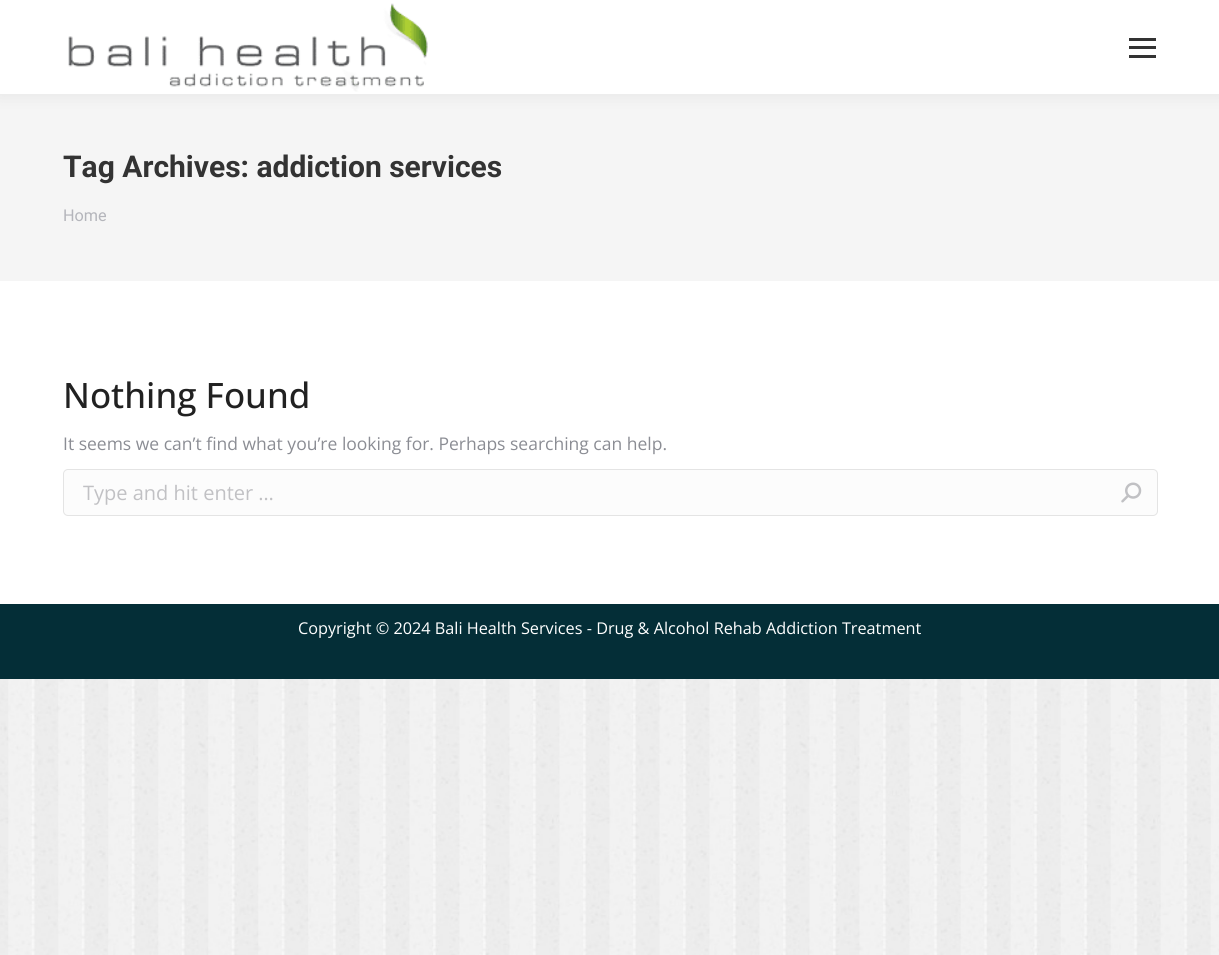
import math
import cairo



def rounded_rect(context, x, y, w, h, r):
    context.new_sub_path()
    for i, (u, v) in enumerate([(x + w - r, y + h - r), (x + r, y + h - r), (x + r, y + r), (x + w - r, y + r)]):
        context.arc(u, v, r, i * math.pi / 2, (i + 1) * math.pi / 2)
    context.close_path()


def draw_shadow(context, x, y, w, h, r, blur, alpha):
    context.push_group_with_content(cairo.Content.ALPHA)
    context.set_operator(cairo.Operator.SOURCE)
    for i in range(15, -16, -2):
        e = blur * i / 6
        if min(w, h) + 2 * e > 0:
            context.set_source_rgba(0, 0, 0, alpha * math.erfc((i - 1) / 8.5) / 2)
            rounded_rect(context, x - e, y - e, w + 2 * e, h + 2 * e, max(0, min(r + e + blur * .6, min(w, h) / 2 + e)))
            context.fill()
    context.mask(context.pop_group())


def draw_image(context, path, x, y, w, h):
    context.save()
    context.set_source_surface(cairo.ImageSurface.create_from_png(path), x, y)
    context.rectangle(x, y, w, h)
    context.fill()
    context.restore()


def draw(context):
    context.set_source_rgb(1, 1, 1)
    context.paint()
    draw_image(context, "images/1.png", 0, 679, 1219, 276)
    context.set_source_rgb(245 / 255, 245 / 255, 245 / 255)
    context.rectangle(0, 94, 1219, 187)
    context.fill()
    context.set_source_rgb(0, 0, 0)
    draw_shadow(context, -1, -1, 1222, 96, 0, 9.5, 0.07)
    context.set_source_rgb(1, 1, 1)
    context.rectangle(0, 0, 1219, 94)
    context.fill()
    draw_image(context, "images/2.png", 68, 3, 360, 89)
    context.set_source_rgb(51 / 255, 51 / 255, 51 / 255)
    context.rectangle(1129, 38, 27, 3)
    context.fill()
    context.rectangle(1129, 46, 27, 3)
    context.fill()
    context.rectangle(1129, 55, 27, 3)
    context.fill()
    context.set_source_rgb(252 / 255, 252 / 255, 252 / 255)
    rounded_rect(context, 63.5, 469.5, 1094, 46, 4.5)
    context.fill_preserve()
    context.set_source_rgb(228 / 255, 228 / 255, 228 / 255)
    context.set_line_width(1)
    context.stroke()
    draw_image(context, "images/3.png", 1121, 482, 21, 21)
    context.set_source_rgb(4 / 255, 46 / 255, 55 / 255)
    context.rectangle(0, 604, 1219, 75)
    context.fill()
    context.select_font_face("Roboto", cairo.FontSlant.NORMAL, cairo.FontWeight.BOLD)
    context.set_font_size(30)
    context.set_source_rgb(51 / 255, 51 / 255, 51 / 255)
    context.move_to(63, 177)
    context.show_text("Tag Archives: addiction services")
    context.select_font_face("Roboto")
    context.set_font_size(16.25)
    context.set_source_rgb(180 / 255, 181 / 255, 187 / 255)
    context.move_to(63, 221)
    context.show_text("Home")
    context.select_font_face("Open Sans Medium")
    context.set_font_size(35)
    context.set_source_rgb(33 / 255, 33 / 255, 33 / 255)
    context.move_to(63, 408)
    context.show_text("Nothing Found")
    context.select_font_face("Open Sans")
    context.set_font_size(17.5)
    context.set_source_rgb(139 / 255, 141 / 255, 148 / 255)
    context.move_to(63, 450)
    context.show_text("It seems we can’t find what you’re looking for. Perhaps searching can help.")
    context.save()
    context.rectangle(83, 479, 1036, 27)
    context.clip()
    context.set_font_size(20)
    context.set_source_rgb(193 / 255, 193 / 255, 196 / 255)
    context.move_to(83, 500)
    context.show_text("Type and hit enter …")
    context.restore()
    context.set_font_size(16.25)
    context.set_source_rgb(1, 1, 1)
    context.move_to(298, 634)
    context.show_text("Copyright © 2024 Bali Health Services - Drug & Alcohol Rehab Addiction Treatment")


surface = cairo.ImageSurface(cairo.Format.RGB24, 1219, 955)
context = cairo.Context(surface)
options = cairo.FontOptions()
options.set_hint_metrics(cairo.HintMetrics.OFF)
options.set_hint_style(cairo.HintStyle.NONE)
context.set_font_options(options)
context.set_miter_limit(4)
draw(context)
surface.write_to_png("out.png")
